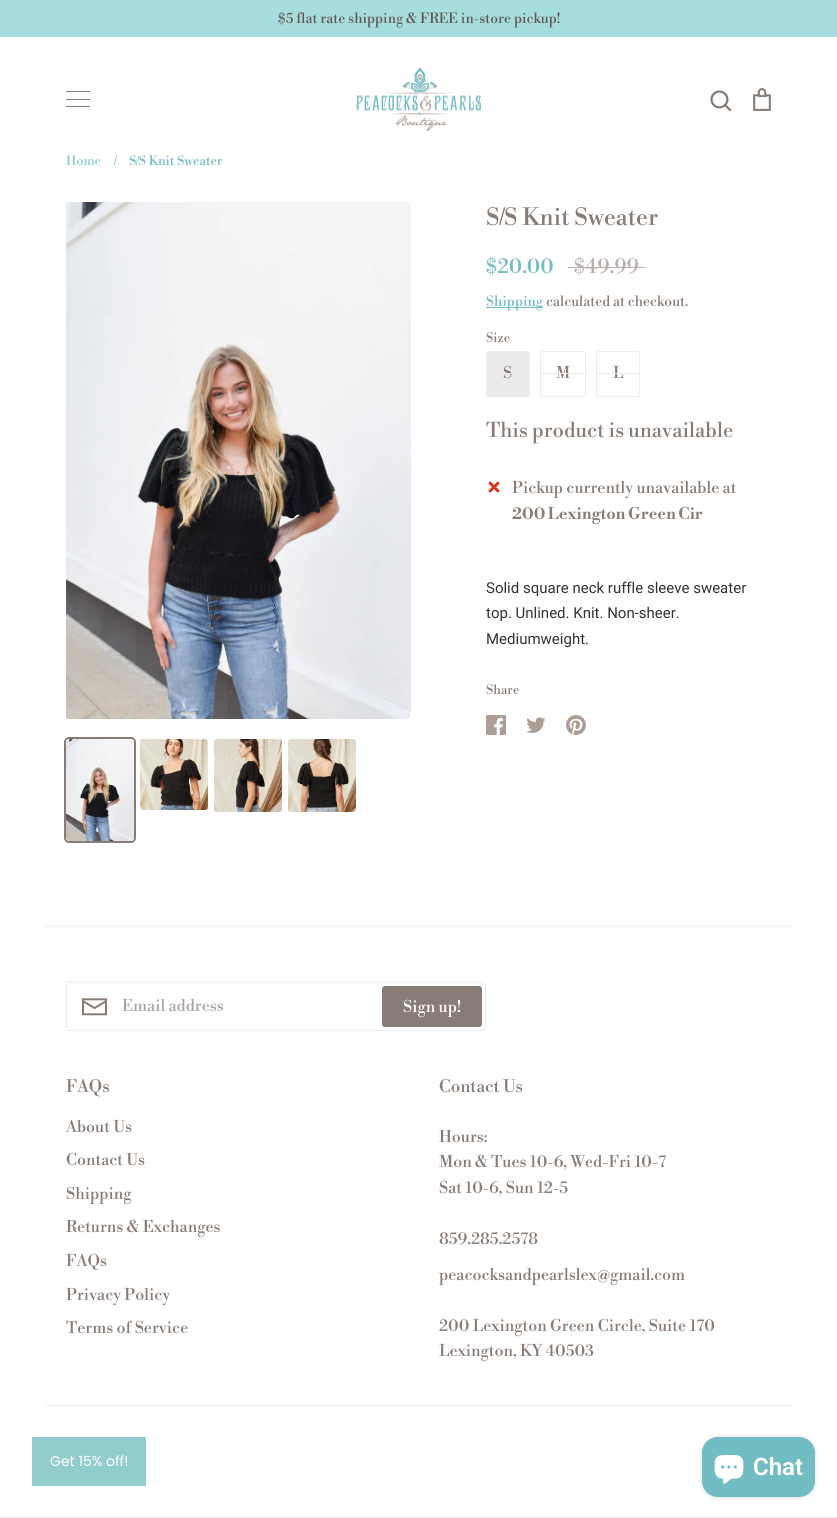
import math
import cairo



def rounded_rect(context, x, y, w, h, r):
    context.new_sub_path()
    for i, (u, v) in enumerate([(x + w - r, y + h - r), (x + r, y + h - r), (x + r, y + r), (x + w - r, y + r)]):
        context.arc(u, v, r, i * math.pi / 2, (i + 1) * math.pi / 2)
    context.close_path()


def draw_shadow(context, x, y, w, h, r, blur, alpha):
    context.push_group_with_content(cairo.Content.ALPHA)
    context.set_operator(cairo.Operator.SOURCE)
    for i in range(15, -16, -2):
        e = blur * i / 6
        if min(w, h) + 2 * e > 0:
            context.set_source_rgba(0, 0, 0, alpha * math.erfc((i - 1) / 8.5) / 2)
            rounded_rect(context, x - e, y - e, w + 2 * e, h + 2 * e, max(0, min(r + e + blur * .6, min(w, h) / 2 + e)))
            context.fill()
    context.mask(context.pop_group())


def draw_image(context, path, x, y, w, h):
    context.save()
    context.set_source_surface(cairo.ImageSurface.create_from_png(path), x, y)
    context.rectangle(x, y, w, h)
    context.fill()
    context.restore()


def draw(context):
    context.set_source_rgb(1, 1, 1)
    context.paint()
    context.set_source_rgb(166 / 255, 222 / 255, 222 / 255)
    context.rectangle(0, 0, 837, 37)
    context.fill()
    context.set_source_rgb(137 / 255, 124 / 255, 118 / 255)
    context.rectangle(66, 91, 24, 1)
    context.fill()
    context.rectangle(66, 99, 24, 1)
    context.fill()
    context.rectangle(66, 106, 24, 1)
    context.fill()
    draw_image(context, "images/1.png", 356, 67, 125, 64)
    draw_image(context, "images/2.png", 710, 90, 22, 22)
    draw_image(context, "images/3.png", 753, 88, 18, 23)
    context.set_source_rgb(237 / 255, 235 / 255, 234 / 255)
    context.rectangle(0, 1517, 837, 1)
    context.fill()
    draw_image(context, "images/4.png", 66, 202, 345, 517)
    rounded_rect(context, 65, 738, 70, 104, 4)
    context.set_source_rgb(137 / 255, 124 / 255, 118 / 255)
    context.stroke()
    draw_image(context, "images/5.png", 66, 739, 68, 102)
    draw_image(context, "images/6.png", 140, 739, 68, 71)
    draw_image(context, "images/7.png", 214, 739, 68, 73)
    draw_image(context, "images/8.png", 288, 739, 68, 73)
    context.set_source_rgb(184 / 255, 176 / 255, 173 / 255)
    context.rectangle(568, 267, 77, 1)
    context.fill()
    context.set_source_rgb(114 / 255, 188 / 255, 196 / 255)
    context.rectangle(486, 307, 57, 1)
    context.fill()
    context.set_source_rgb(235 / 255, 235 / 255, 235 / 255)
    rounded_rect(context, 486.5, 351.5, 43, 45, 2.5)
    context.fill_preserve()
    context.set_line_width(1)
    context.stroke()
    rounded_rect(context, 540.5, 351.5, 45, 45, 2.5)
    context.set_source_rgb(237 / 255, 235 / 255, 234 / 255)
    context.stroke()
    rounded_rect(context, 596.5, 351.5, 43, 45, 2.5)
    context.stroke()
    draw_image(context, "images/9.png", 488, 481, 12, 12)
    draw_image(context, "images/10.png", 486, 715, 20, 20)
    draw_image(context, "images/11.png", 526, 717, 20, 16)
    draw_image(context, "images/12.png", 566, 715, 20, 20)
    context.rectangle(46, 926, 745, 1)
    context.fill()
    context.rectangle(46, 1405, 745, 1)
    context.fill()
    rounded_rect(context, 66.5, 982.5, 419, 48, 2.5)
    context.stroke()
    draw_image(context, "images/13.png", 82, 998, 25, 18)
    context.set_source_rgb(1, 1, 1)
    context.rectangle(67, 983, 1, 47)
    context.fill()
    context.set_source_rgb(137 / 255, 124 / 255, 118 / 255)
    rounded_rect(context, 382.5, 986.5, 99, 40, 2.5)
    context.fill_preserve()
    context.stroke()
    context.set_source_rgb(147 / 255, 204 / 255, 204 / 255)
    context.rectangle(32, 1437, 114, 49)
    context.fill()
    context.set_source_rgb(0, 0, 0)
    draw_shadow(context, 702, 1437, 113, 60, 16, 2.5, 0.15)
    context.set_source_rgb(114 / 255, 188 / 255, 196 / 255)
    rounded_rect(context, 702, 1437, 113, 60, 16)
    context.fill()
    draw_image(context, "images/14.png", 714, 1455, 30, 29)
    context.select_font_face("Libre Bodoni")
    context.set_font_size(13.9)
    context.set_source_rgb(97 / 255, 88 / 255, 83 / 255)
    context.move_to(278, 23)
    context.show_text("$5 flat rate shipping & FREE in-store pickup!")
    context.set_font_size(12.75)
    context.set_source_rgb(142 / 255, 201 / 255, 208 / 255)
    context.move_to(66, 165)
    context.show_text("Home")
    context.set_source_rgb(114 / 255, 188 / 255, 196 / 255)
    context.move_to(114, 165)
    context.show_text("/")
    context.move_to(129, 165)
    context.show_text("S/S Knit Sweater")
    context.set_font_size(23.5)
    context.set_source_rgb(137 / 255, 124 / 255, 118 / 255)
    context.move_to(486, 225)
    context.show_text("S/S Knit Sweater")
    context.set_font_size(20.25)
    context.set_source_rgb(114 / 255, 188 / 255, 196 / 255)
    context.move_to(486, 273)
    context.show_text("$20.00")
    context.set_source_rgb(184 / 255, 176 / 255, 173 / 255)
    context.move_to(574, 273)
    context.show_text("$49.99")
    context.set_font_size(13.9)
    context.set_source_rgb(114 / 255, 188 / 255, 196 / 255)
    context.move_to(486, 306)
    context.show_text("Shipping")
    context.set_source_rgb(137 / 255, 124 / 255, 118 / 255)
    context.move_to(546, 306)
    context.show_text("calculated at checkout.")
    context.set_font_size(12.75)
    context.move_to(486, 342)
    context.show_text("Size")
    context.set_font_size(16)
    context.move_to(503, 378)
    context.show_text("S")
    context.set_source_rgb(235 / 255, 235 / 255, 235 / 255)
    context.rectangle(508, 373, 4, 1)
    context.fill()
    context.set_source_rgb(137 / 255, 124 / 255, 118 / 255)
    context.move_to(556, 378)
    context.show_text("M")
    context.set_source_rgb(235 / 255, 235 / 255, 235 / 255)
    context.rectangle(541, 373, 44, 1)
    context.fill()
    context.set_source_rgb(137 / 255, 124 / 255, 118 / 255)
    context.move_to(613, 378)
    context.show_text("L")
    context.set_source_rgb(235 / 255, 235 / 255, 235 / 255)
    context.rectangle(597, 373, 42, 1)
    context.fill()
    context.set_font_size(20.25)
    context.set_source_rgb(137 / 255, 124 / 255, 118 / 255)
    context.move_to(486, 437)
    context.show_text("This product is unavailable")
    context.set_font_size(16)
    context.move_to(512, 493)
    context.show_text("Pickup currently unavailable at")
    context.select_font_face("Libre Bodoni", cairo.FontSlant.NORMAL, cairo.FontWeight.BOLD)
    context.move_to(512, 519)
    context.show_text("200 Lexington Green Cir")
    context.select_font_face("Roboto")
    context.set_font_size(15)
    context.set_source_rgb(51 / 255, 51 / 255, 51 / 255)
    context.move_to(486, 593)
    context.show_text("Solid square neck ruffle sleeve sweater")
    context.move_to(486, 618)
    context.show_text("top. Unlined. Knit. Non-sheer.")
    context.move_to(486, 644)
    context.show_text("Mediumweight.")
    context.select_font_face("Libre Bodoni")
    context.set_font_size(12.75)
    context.set_source_rgb(137 / 255, 124 / 255, 118 / 255)
    context.move_to(486, 694)
    context.show_text("Share")
    context.set_font_size(16)
    context.set_source_rgb(172 / 255, 163 / 255, 159 / 255)
    context.move_to(122, 1011)
    context.show_text("Email address")
    context.set_source_rgb(1, 1, 1)
    context.move_to(403, 1012)
    context.show_text("Sign up!")
    context.set_font_size(17)
    context.set_source_rgb(137 / 255, 124 / 255, 118 / 255)
    context.move_to(66, 1092)
    context.show_text("FAQs")
    context.set_font_size(16)
    context.move_to(66, 1132)
    context.show_text("About Us")
    context.move_to(66, 1165)
    context.show_text("Contact Us")
    context.move_to(66, 1199)
    context.show_text("Shipping")
    context.move_to(66, 1232)
    context.show_text("Returns & Exchanges")
    context.move_to(66, 1266)
    context.show_text("FAQs")
    context.move_to(66, 1300)
    context.show_text("Privacy Policy")
    context.move_to(66, 1333)
    context.show_text("Terms of Service")
    context.set_font_size(17)
    context.move_to(439, 1092)
    context.show_text("Contact Us")
    context.set_font_size(16)
    context.move_to(439, 1142)
    context.show_text("Hours:")
    context.move_to(439, 1167)
    context.show_text("Mon & Tues 10-6, Wed-Fri 10-7")
    context.move_to(439, 1193)
    context.show_text("Sat 10-6, Sun 12-5")
    context.move_to(439, 1244)
    context.show_text("859.285.2578")
    context.move_to(439, 1280)
    context.show_text("peacocksandpearlslex@gmail.com")
    context.move_to(439, 1331)
    context.show_text("200 Lexington Green Circle, Suite 170")
    context.move_to(439, 1356)
    context.show_text("Lexington, KY 40503")
    context.select_font_face("Poppins")
    context.set_font_size(14)
    context.set_source_rgb(1, 1, 1)
    context.move_to(50, 1466)
    context.show_text("Get 15% off!")
    context.select_font_face("Roboto SemiBold")
    context.set_font_size(24)
    context.move_to(753, 1475)
    context.show_text("Chat")


surface = cairo.ImageSurface(cairo.Format.RGB24, 837, 1518)
context = cairo.Context(surface)
options = cairo.FontOptions()
options.set_hint_metrics(cairo.HintMetrics.OFF)
options.set_hint_style(cairo.HintStyle.NONE)
context.set_font_options(options)
context.set_miter_limit(4)
draw(context)
surface.write_to_png("out.png")
